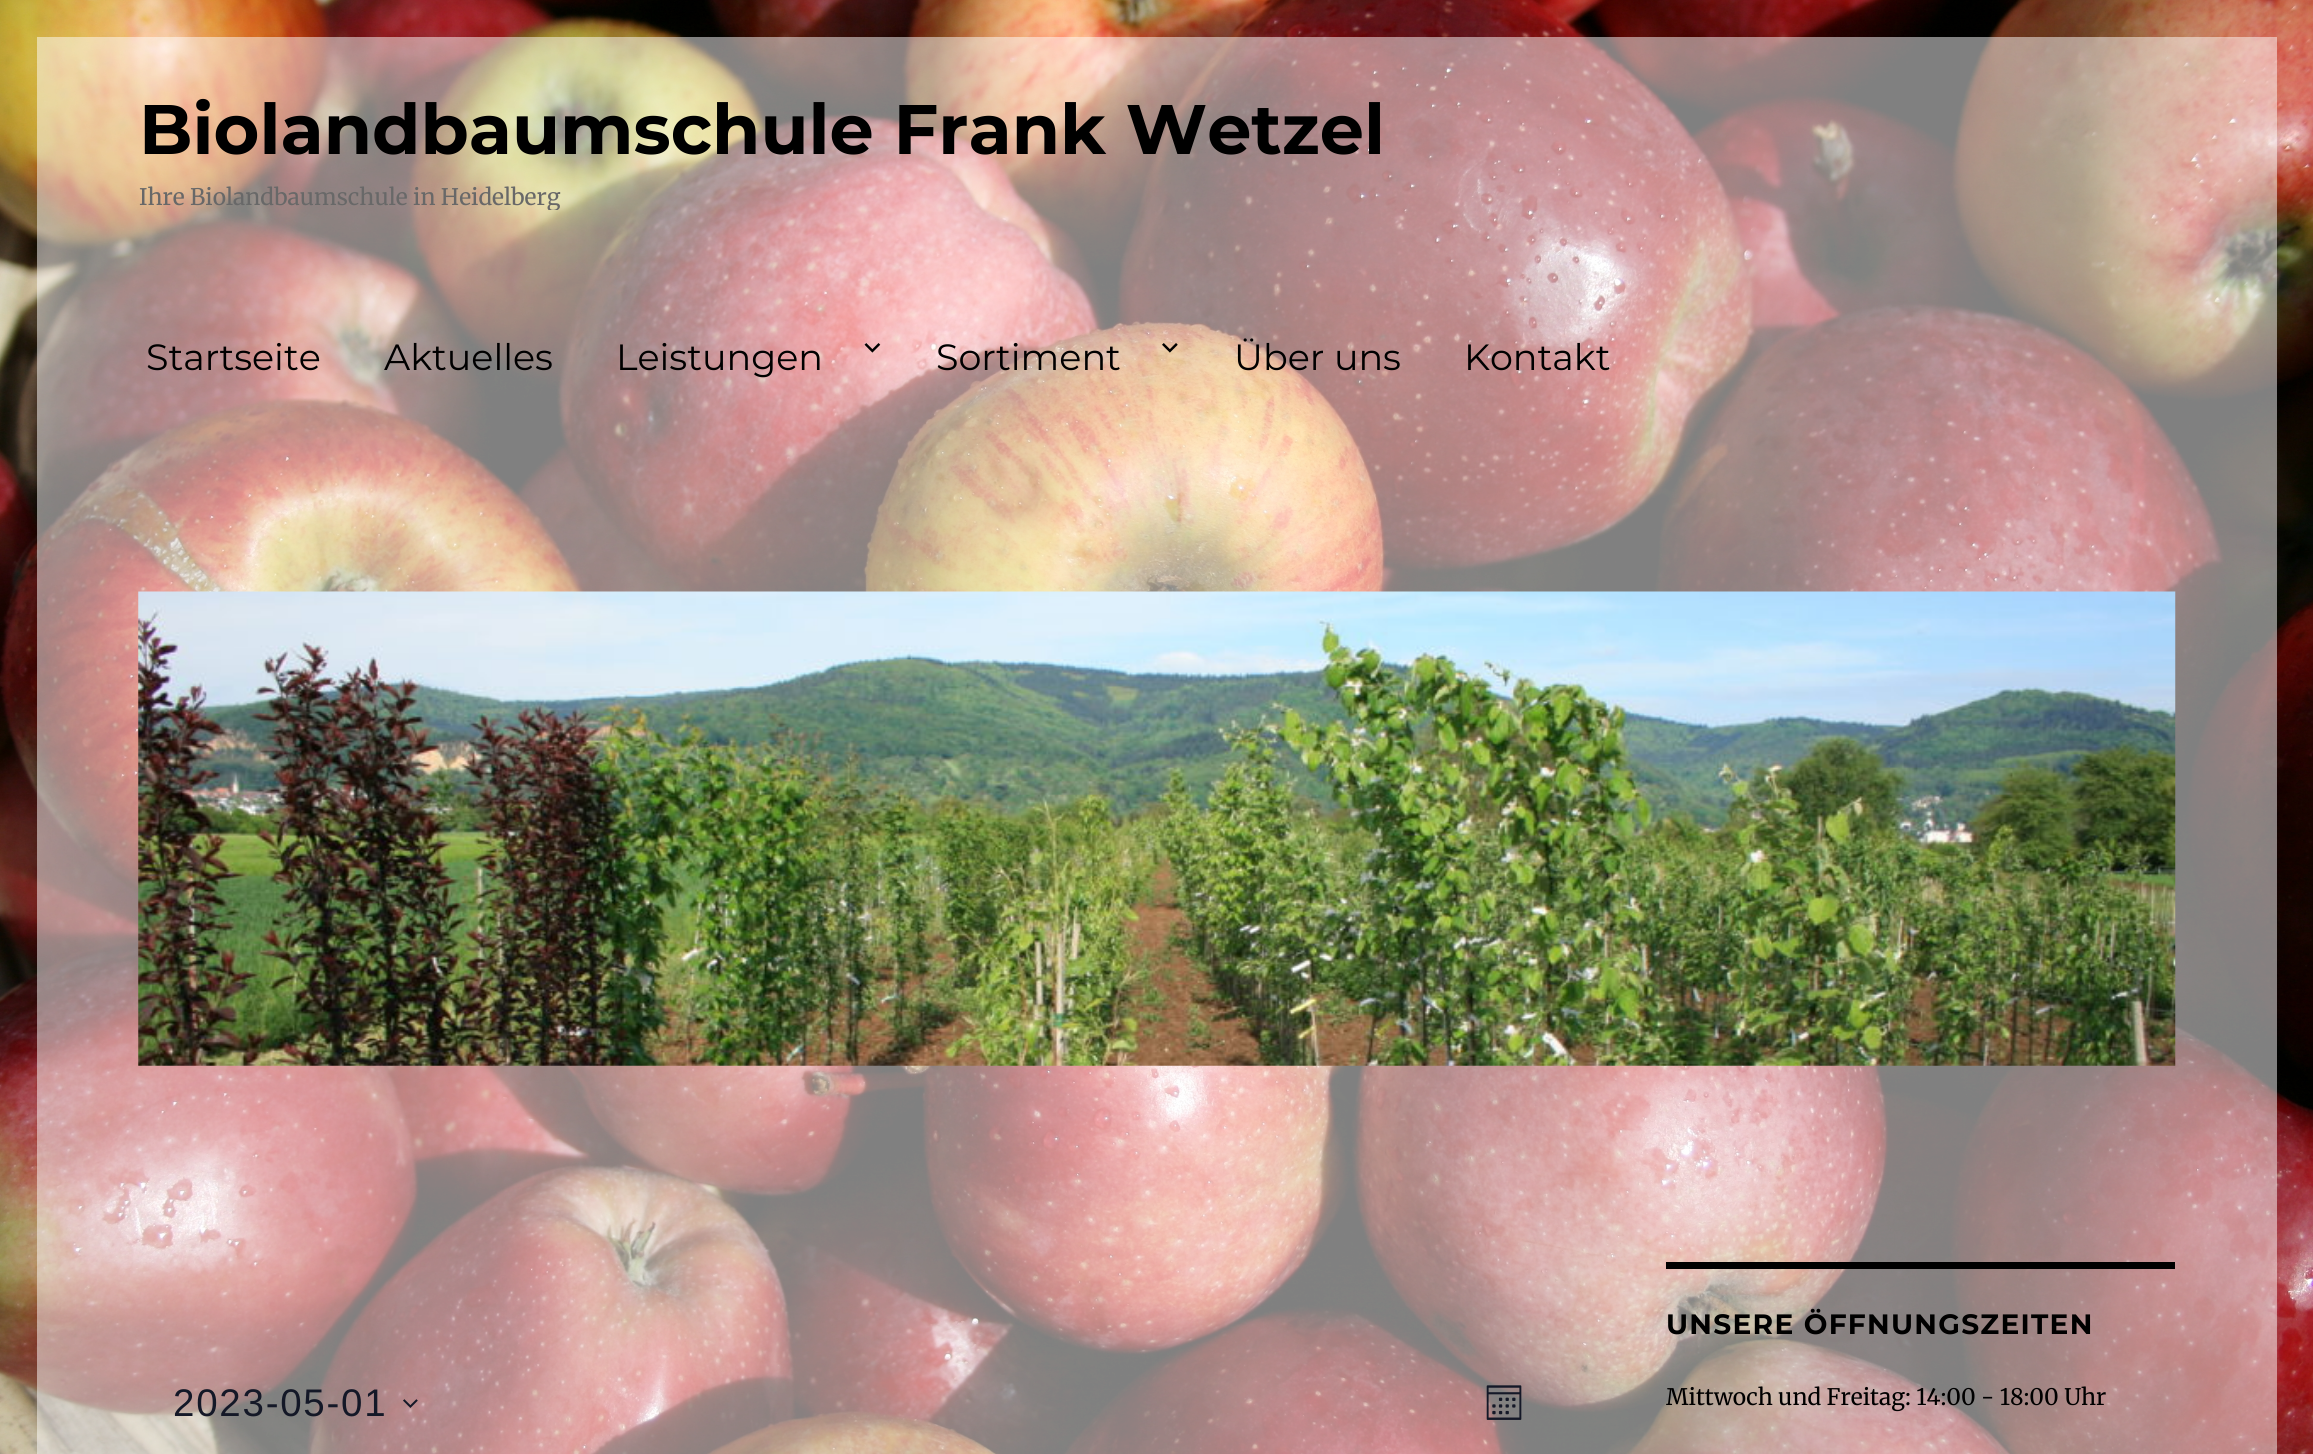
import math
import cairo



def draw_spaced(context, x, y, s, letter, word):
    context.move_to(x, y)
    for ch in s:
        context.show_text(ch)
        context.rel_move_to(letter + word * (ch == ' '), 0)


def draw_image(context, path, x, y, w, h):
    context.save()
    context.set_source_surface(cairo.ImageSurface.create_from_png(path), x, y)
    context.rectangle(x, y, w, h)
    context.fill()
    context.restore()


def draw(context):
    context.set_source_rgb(1, 1, 1)
    context.paint()
    draw_image(context, "images/1.png", 0, 0, 2313, 1454)
    draw_image(context, "images/2.png", 864, 343, 17, 10)
    draw_image(context, "images/3.png", 1162, 343, 16, 10)
    draw_image(context, "images/4.png", 138, 591, 2038, 475)
    draw_image(context, "images/5.png", 403, 1399, 15, 9)
    draw_image(context, "images/6.png", 1486, 1385, 36, 35)
    context.set_source_rgb(0, 0, 0)
    context.rectangle(1666, 1262, 509, 7)
    context.fill()
    context.select_font_face("Montserrat", cairo.FontSlant.NORMAL, cairo.FontWeight.BOLD)
    context.set_font_size(70)
    context.move_to(139, 154)
    context.show_text("Biolandbaumschule Frank Wetzel")
    context.save()
    context.rectangle(138, 86, 1246, 124)
    context.clip()
    context.select_font_face("Merriweather")
    context.set_font_size(22.75)
    context.set_source_rgb(104 / 255, 104 / 255, 104 / 255)
    context.move_to(139, 205)
    context.show_text("Ihre Biolandbaumschule in Heidelberg")
    context.restore()
    context.select_font_face("Montserrat")
    context.set_font_size(36.5)
    context.move_to(146, 370)
    context.show_text("Startseite")
    context.move_to(384, 370)
    context.show_text("Aktuelles")
    context.move_to(616, 370)
    context.show_text("Leistungen")
    context.move_to(936, 370)
    context.show_text("Sortiment")
    context.move_to(1234, 370)
    context.show_text("Über uns")
    context.move_to(1464, 370)
    context.show_text("Kontakt")
    context.select_font_face("Liberation Sans")
    context.set_font_size(38.5)
    context.set_source_rgb(20 / 255, 24 / 255, 39 / 255)
    draw_spaced(context, 173, 1416, "2023-05-01", 1.75, 0)
    context.select_font_face("Montserrat", cairo.FontSlant.NORMAL, cairo.FontWeight.BOLD)
    context.set_font_size(28)
    context.set_source_rgb(0, 0, 0)
    draw_spaced(context, 1666, 1334, "UNSERE ÖFFNUNGSZEITEN", 1.3, 0)
    context.select_font_face("Merriweather")
    context.set_font_size(22.75)
    context.move_to(1666, 1405)
    context.show_text("Mittwoch und Freitag: 14:00 - 18:00 Uhr")


surface = cairo.ImageSurface(cairo.Format.RGB24, 2313, 1454)
context = cairo.Context(surface)
options = cairo.FontOptions()
options.set_hint_metrics(cairo.HintMetrics.OFF)
options.set_hint_style(cairo.HintStyle.NONE)
context.set_font_options(options)
context.set_miter_limit(4)
draw(context)
surface.write_to_png("out.png")
